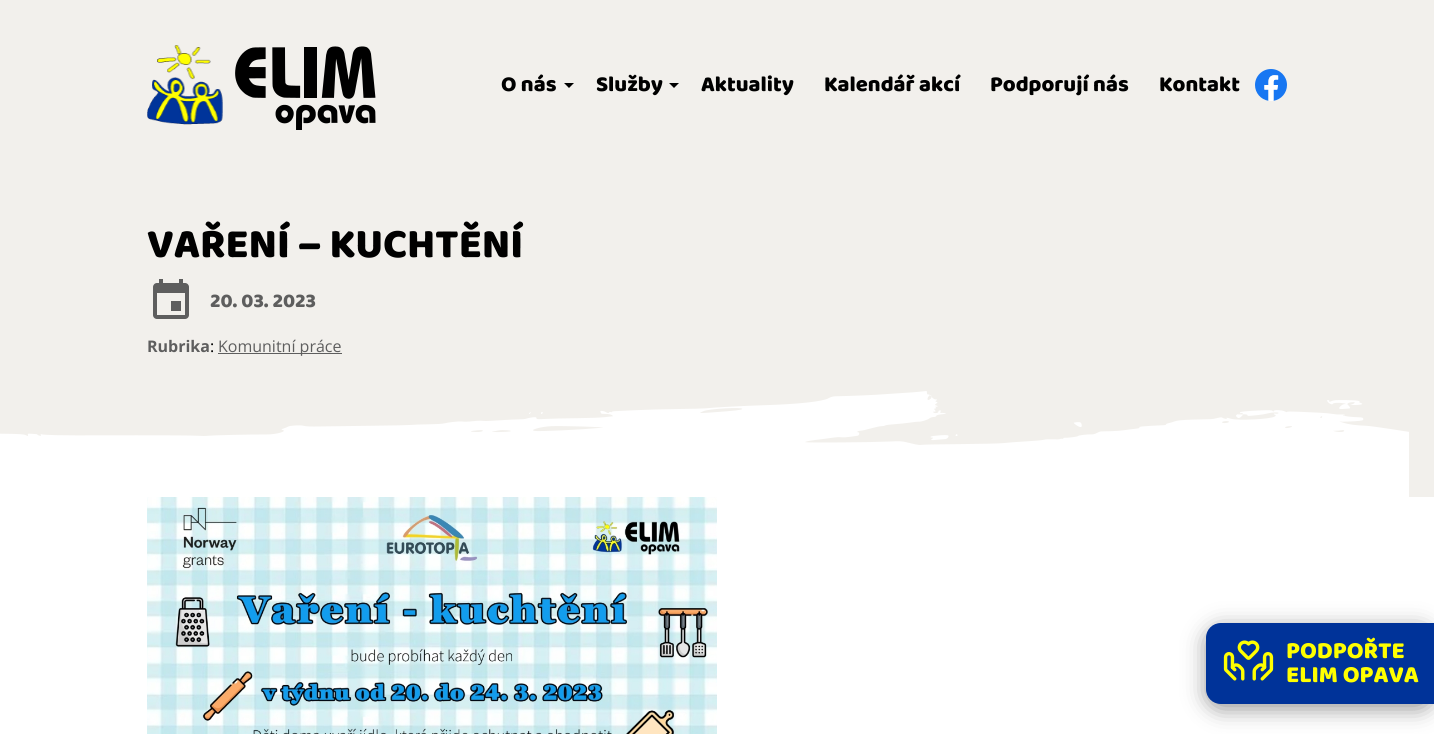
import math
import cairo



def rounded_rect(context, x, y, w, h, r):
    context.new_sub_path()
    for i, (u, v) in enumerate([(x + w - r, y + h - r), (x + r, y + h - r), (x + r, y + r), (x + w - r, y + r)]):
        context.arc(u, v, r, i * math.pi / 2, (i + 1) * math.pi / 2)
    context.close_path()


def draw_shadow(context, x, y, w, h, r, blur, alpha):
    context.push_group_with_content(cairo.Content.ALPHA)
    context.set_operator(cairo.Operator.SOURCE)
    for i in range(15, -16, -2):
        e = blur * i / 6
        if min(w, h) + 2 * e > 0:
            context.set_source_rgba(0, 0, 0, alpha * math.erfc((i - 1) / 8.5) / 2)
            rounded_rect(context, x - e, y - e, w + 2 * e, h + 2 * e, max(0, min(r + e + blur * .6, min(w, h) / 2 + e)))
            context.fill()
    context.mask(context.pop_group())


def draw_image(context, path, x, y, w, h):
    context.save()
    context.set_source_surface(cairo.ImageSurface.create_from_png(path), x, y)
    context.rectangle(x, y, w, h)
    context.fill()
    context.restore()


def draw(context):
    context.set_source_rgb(1, 1, 1)
    context.paint()
    context.set_source_rgb(242 / 255, 240 / 255, 236 / 255)
    context.rectangle(0, 0, 1434, 497)
    context.fill()
    draw_image(context, "images/1.png", 147, 45, 76, 80)
    draw_image(context, "images/2.png", 235, 46, 141, 84)
    context.set_source_rgb(0, 0, 0)
    context.new_path()
    context.move_to(564, 83)
    context.line_to(569, 88)
    context.line_to(574, 83)
    context.close_path()
    context.fill()
    context.new_path()
    context.move_to(669, 83)
    context.line_to(674, 88)
    context.line_to(679, 83)
    context.close_path()
    context.fill()
    draw_image(context, "images/3.png", 1255, 69, 32, 32)
    draw_image(context, "images/4.png", 153, 279, 36, 40)
    context.set_source_rgb(94 / 255, 94 / 255, 94 / 255)
    context.rectangle(218, 353, 124, 1)
    context.fill()
    draw_image(context, "images/5.png", 0, 391, 1409, 106)
    draw_image(context, "images/6.png", 147, 497, 570, 237)
    context.set_source_rgb(0, 0, 0)
    draw_shadow(context, 1206, 628, 228, 81, 15, 11, 0.41)
    context.set_source_rgb(0, 51 / 255, 153 / 255)
    context.new_path()
    context.move_to(1221, 623)
    context.line_to(1434, 623)
    context.line_to(1434, 704)
    context.line_to(1221, 704)
    context.curve_to(1212.5, 704, 1206, 697.5, 1206, 689)
    context.line_to(1206, 638)
    context.curve_to(1206, 629.5, 1212.5, 623, 1221, 623)
    context.close_path()
    context.fill()
    draw_image(context, "images/7.png", 1223, 640, 51, 41)
    context.select_font_face("Baloo 2 ExtraBold")
    context.set_font_size(22)
    context.set_source_rgb(0, 0, 0)
    context.move_to(501, 91)
    context.show_text("O nás")
    context.move_to(596, 91)
    context.show_text("Služby")
    context.move_to(701, 91)
    context.show_text("Aktuality")
    context.move_to(824, 91)
    context.show_text("Kalendář akcí")
    context.move_to(990, 91)
    context.show_text("Podporují nás")
    context.move_to(1159, 91)
    context.show_text("Kontakt")
    context.set_font_size(42)
    context.move_to(147, 257)
    context.show_text("VAŘENÍ – KUCHTĚNÍ")
    context.set_font_size(20)
    context.set_source_rgb(94 / 255, 94 / 255, 94 / 255)
    context.move_to(210, 307)
    context.show_text("20. 03. 2023")
    context.select_font_face("Open Sans", cairo.FontSlant.NORMAL, cairo.FontWeight.BOLD)
    context.set_font_size(16)
    context.move_to(147, 352)
    context.show_text("Rubrika")
    context.select_font_face("Open Sans")
    context.set_source_rgb(0, 0, 0)
    context.move_to(210, 352)
    context.show_text(":")
    context.set_source_rgb(94 / 255, 94 / 255, 94 / 255)
    context.move_to(218, 352)
    context.show_text("Komunitní práce")
    context.select_font_face("Baloo 2 ExtraBold")
    context.set_font_size(24)
    context.set_source_rgb(1, 1, 0)
    context.move_to(1286, 658)
    context.show_text("PODPOŘTE")
    context.move_to(1286, 682)
    context.show_text("ELIM OPAVA")


surface = cairo.ImageSurface(cairo.Format.RGB24, 1434, 734)
context = cairo.Context(surface)
options = cairo.FontOptions()
options.set_hint_metrics(cairo.HintMetrics.OFF)
options.set_hint_style(cairo.HintStyle.NONE)
context.set_font_options(options)
context.set_miter_limit(4)
draw(context)
surface.write_to_png("out.png")
